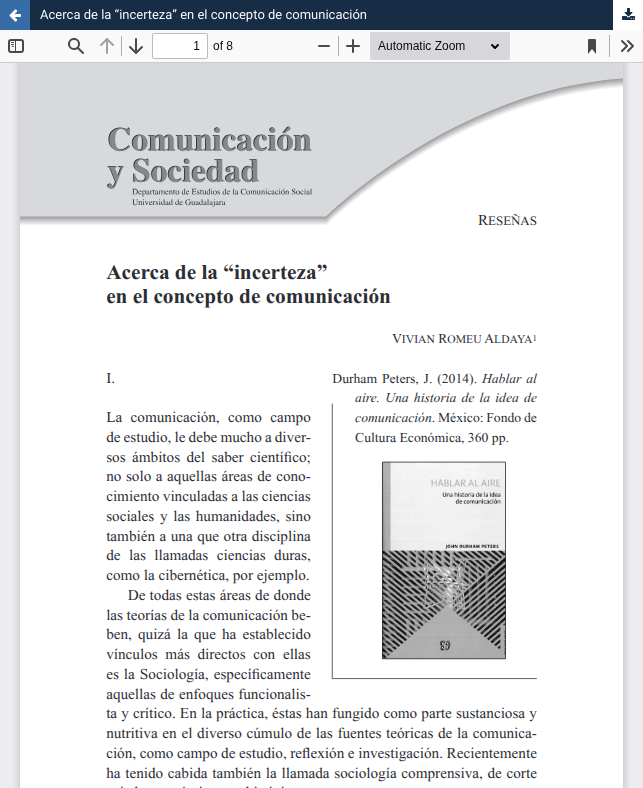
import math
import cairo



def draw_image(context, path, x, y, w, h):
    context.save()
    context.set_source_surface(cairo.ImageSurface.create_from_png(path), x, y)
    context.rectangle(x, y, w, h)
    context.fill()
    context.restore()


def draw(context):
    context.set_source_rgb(1, 1, 1)
    context.paint()
    context.set_source_rgb(23 / 255, 45 / 255, 69 / 255)
    context.rectangle(30, 0, 583, 30)
    context.fill()
    context.set_source_rgb(55 / 255, 107 / 255, 165 / 255)
    context.rectangle(0, 0, 30, 30)
    context.fill()
    draw_image(context, "images/1.png", 9, 9, 12, 13)
    draw_image(context, "images/2.png", 622, 8, 13, 12)
    draw_image(context, "images/3.png", 0, 30, 643, 758)
    context.select_font_face("Roboto")
    context.set_font_size(13)
    context.set_source_rgb(1, 1, 1)
    context.move_to(40, 19)
    context.show_text("Acerca de la “incerteza” en el concepto de comunicación")


surface = cairo.ImageSurface(cairo.Format.RGB24, 643, 788)
context = cairo.Context(surface)
options = cairo.FontOptions()
options.set_hint_metrics(cairo.HintMetrics.OFF)
options.set_hint_style(cairo.HintStyle.NONE)
context.set_font_options(options)
context.set_miter_limit(4)
draw(context)
surface.write_to_png("out.png")
